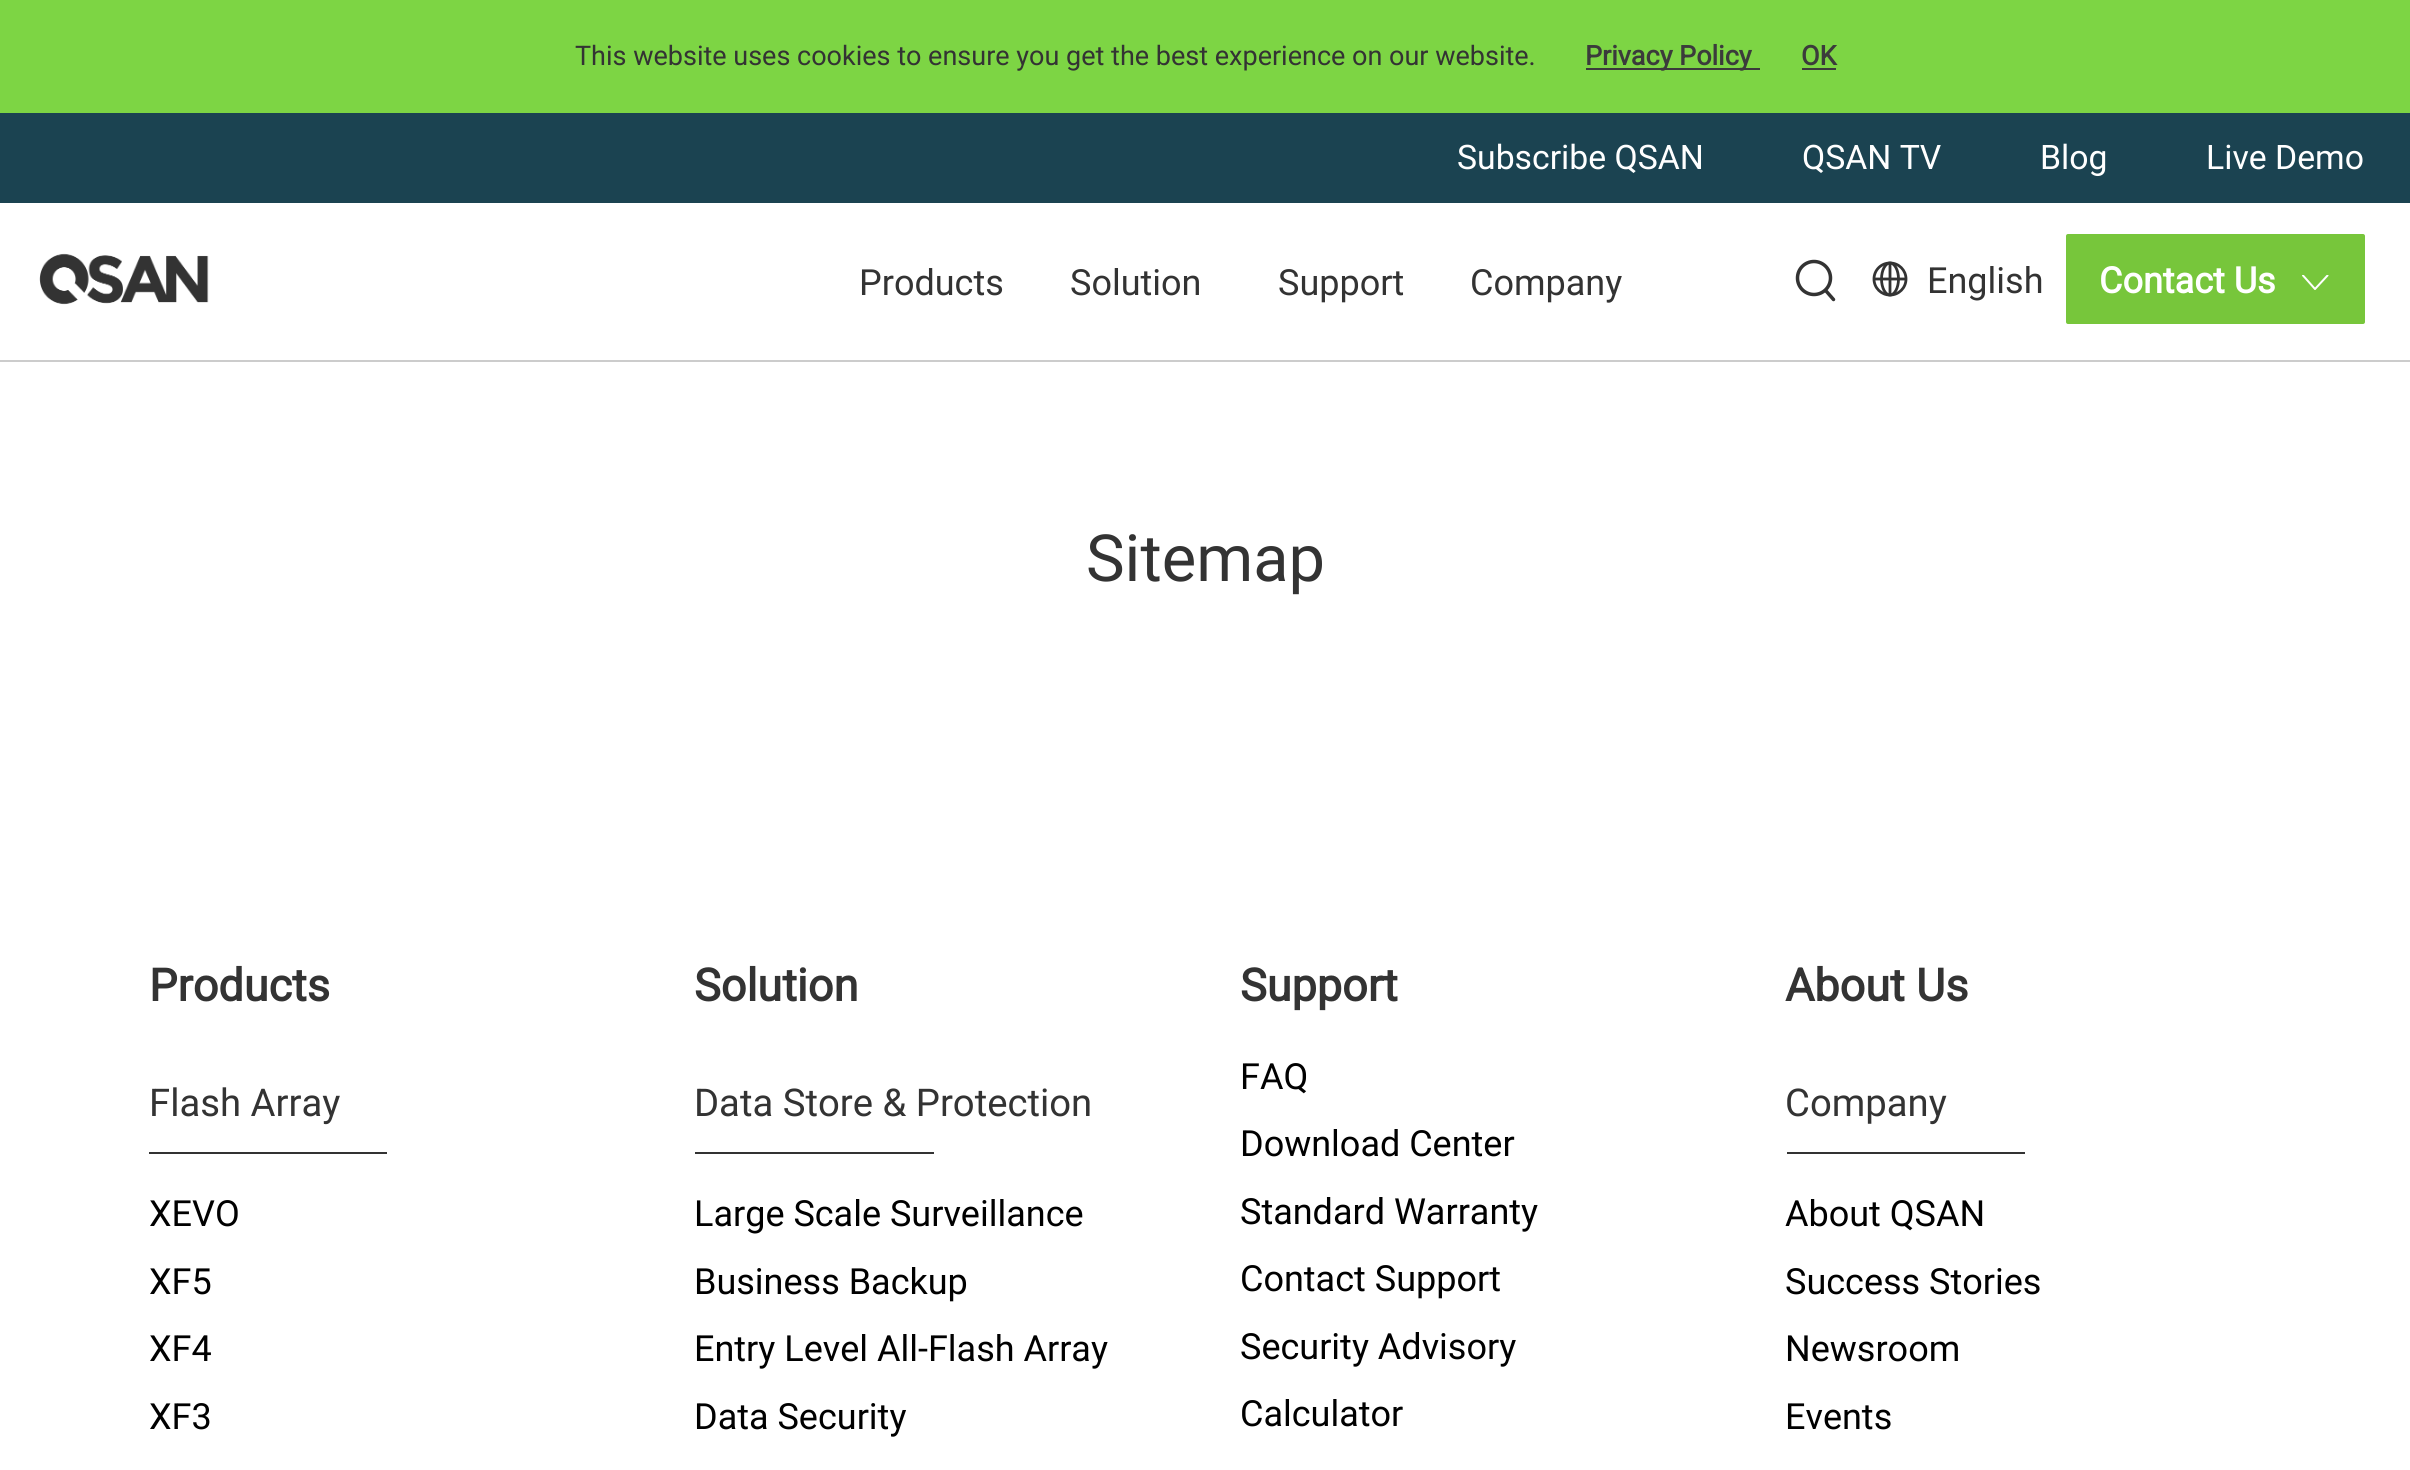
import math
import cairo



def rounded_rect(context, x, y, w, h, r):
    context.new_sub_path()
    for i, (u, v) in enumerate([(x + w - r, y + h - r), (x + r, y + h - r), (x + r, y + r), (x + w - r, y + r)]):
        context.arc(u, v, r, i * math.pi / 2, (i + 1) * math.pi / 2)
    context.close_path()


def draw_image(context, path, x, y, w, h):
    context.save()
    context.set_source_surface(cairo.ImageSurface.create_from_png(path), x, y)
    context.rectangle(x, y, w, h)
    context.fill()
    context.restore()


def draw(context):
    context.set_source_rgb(1, 1, 1)
    context.paint()
    context.set_source_rgb(204 / 255, 204 / 255, 204 / 255)
    context.rectangle(0, 360, 2410, 2)
    context.fill()
    context.set_source_rgb(125 / 255, 213 / 255, 68 / 255)
    context.rectangle(0, 0, 2410, 113)
    context.fill()
    context.set_source_rgb(59 / 255, 59 / 255, 59 / 255)
    context.rectangle(1586, 68, 174, 2)
    context.fill()
    context.rectangle(1802, 68, 34, 2)
    context.fill()
    context.set_source_rgb(27 / 255, 67 / 255, 81 / 255)
    context.rectangle(0, 113, 2410, 90)
    context.fill()
    draw_image(context, "images/1.png", 39, 253, 170, 52)
    context.arc(1814, 278, 16.5, 0, 2 * math.pi)
    context.set_source_rgb(51 / 255, 51 / 255, 51 / 255)
    context.set_line_width(3.5)
    context.stroke()
    context.new_path()
    context.move_to(1826.5, 291.5)
    context.line_to(1833.5, 299.5)
    context.set_line_cap(cairo.LineCap.ROUND)
    context.stroke()
    context.arc(1890, 279, 16, 0, 2 * math.pi)
    context.set_line_width(2.8)
    context.set_line_cap(cairo.LineCap.BUTT)
    context.stroke()
    context.new_path()
    context.move_to(1890, 263)
    context.curve_to(1894.5, 263, 1898.5, 270, 1898.5, 279)
    context.curve_to(1898.5, 288, 1894.5, 295, 1890, 295)
    context.curve_to(1885.5, 295, 1881.5, 288, 1881.5, 279)
    context.curve_to(1881.5, 270, 1885.5, 263, 1890, 263)
    context.close_path()
    context.stroke()
    context.new_path()
    context.move_to(1873.5, 279)
    context.line_to(1906.5, 279)
    context.move_to(1890, 263)
    context.line_to(1890, 295)
    context.stroke()
    context.set_source_rgb(119 / 255, 198 / 255, 59 / 255)
    rounded_rect(context, 2066, 234, 299, 90, 2)
    context.fill()
    context.save()
    context.rectangle(2288, 275, 54, 15)
    context.clip()
    context.new_path()
    context.move_to(2303, 275.5)
    context.line_to(2315, 289)
    context.line_to(2327.5, 275.5)
    context.set_source_rgb(1, 1, 1)
    context.set_line_width(2)
    context.set_line_cap(cairo.LineCap.ROUND)
    context.stroke()
    context.restore()
    context.set_source_rgb(51 / 255, 51 / 255, 51 / 255)
    context.rectangle(149, 1152, 238, 2)
    context.fill()
    context.rectangle(695, 1152, 239, 2)
    context.fill()
    context.rectangle(1787, 1152, 238, 2)
    context.fill()
    context.select_font_face("Roboto")
    context.set_font_size(27)
    context.move_to(575, 65)
    context.show_text("This website uses cookies to ensure you get the best experience on our website.")
    context.select_font_face("Roboto", cairo.FontSlant.NORMAL, cairo.FontWeight.BOLD)
    context.set_source_rgb(59 / 255, 59 / 255, 59 / 255)
    context.move_to(1585, 65)
    context.show_text("Privacy Policy")
    context.move_to(1801, 65)
    context.show_text("OK")
    context.select_font_face("Roboto")
    context.set_font_size(33.75)
    context.set_source_rgb(1, 1, 1)
    context.move_to(1457, 169)
    context.show_text("Subscribe QSAN")
    context.move_to(1802, 169)
    context.show_text("QSAN TV")
    context.move_to(2040, 169)
    context.show_text("Blog")
    context.move_to(2206, 169)
    context.show_text("Live Demo")
    context.set_font_size(36)
    context.set_source_rgb(51 / 255, 51 / 255, 51 / 255)
    context.move_to(859, 295)
    context.show_text("Products")
    context.move_to(1070, 295)
    context.show_text("Solution")
    context.move_to(1278, 295)
    context.show_text("Support")
    context.move_to(1470, 295)
    context.show_text("Company")
    context.move_to(1927, 293)
    context.show_text("English")
    context.select_font_face("Roboto", cairo.FontSlant.NORMAL, cairo.FontWeight.BOLD)
    context.set_source_rgb(1, 1, 1)
    context.move_to(2099, 293)
    context.show_text("Contact Us")
    context.select_font_face("Roboto")
    context.set_font_size(65)
    context.set_source_rgb(51 / 255, 51 / 255, 51 / 255)
    context.move_to(1086, 581)
    context.show_text("Sitemap")
    context.select_font_face("Roboto", cairo.FontSlant.NORMAL, cairo.FontWeight.BOLD)
    context.set_font_size(45)
    context.move_to(149, 1001)
    context.show_text("Products")
    context.select_font_face("Roboto")
    context.set_font_size(38.25)
    context.move_to(149, 1116)
    context.show_text("Flash Array")
    context.set_font_size(36)
    context.set_source_rgb(0, 0, 0)
    context.move_to(149, 1226)
    context.show_text("XEVO")
    context.move_to(149, 1294)
    context.show_text("XF5")
    context.move_to(149, 1361)
    context.show_text("XF4")
    context.move_to(149, 1429)
    context.show_text("XF3")
    context.select_font_face("Roboto", cairo.FontSlant.NORMAL, cairo.FontWeight.BOLD)
    context.set_font_size(45)
    context.set_source_rgb(51 / 255, 51 / 255, 51 / 255)
    context.move_to(694, 1001)
    context.show_text("Solution")
    context.select_font_face("Roboto")
    context.set_font_size(38.25)
    context.move_to(694, 1116)
    context.show_text("Data Store & Protection")
    context.set_font_size(36)
    context.set_source_rgb(0, 0, 0)
    context.move_to(694, 1226)
    context.show_text("Large Scale Surveillance")
    context.move_to(694, 1294)
    context.show_text("Business Backup")
    context.move_to(694, 1361)
    context.show_text("Entry Level All-Flash Array")
    context.move_to(694, 1429)
    context.show_text("Data Security")
    context.select_font_face("Roboto", cairo.FontSlant.NORMAL, cairo.FontWeight.BOLD)
    context.set_font_size(45)
    context.set_source_rgb(51 / 255, 51 / 255, 51 / 255)
    context.move_to(1240, 1001)
    context.show_text("Support")
    context.select_font_face("Roboto")
    context.set_font_size(36)
    context.set_source_rgb(0, 0, 0)
    context.move_to(1240, 1089)
    context.show_text("FAQ")
    context.move_to(1240, 1156)
    context.show_text("Download Center")
    context.move_to(1240, 1224)
    context.show_text("Standard Warranty")
    context.move_to(1240, 1291)
    context.show_text("Contact Support")
    context.move_to(1240, 1359)
    context.show_text("Security Advisory")
    context.move_to(1240, 1426)
    context.show_text("Calculator")
    context.select_font_face("Roboto", cairo.FontSlant.NORMAL, cairo.FontWeight.BOLD)
    context.set_font_size(45)
    context.set_source_rgb(51 / 255, 51 / 255, 51 / 255)
    context.move_to(1785, 1001)
    context.show_text("About Us")
    context.select_font_face("Roboto")
    context.set_font_size(38.25)
    context.move_to(1785, 1116)
    context.show_text("Company")
    context.set_font_size(36)
    context.set_source_rgb(0, 0, 0)
    context.move_to(1785, 1226)
    context.show_text("About QSAN")
    context.move_to(1785, 1294)
    context.show_text("Success Stories")
    context.move_to(1785, 1361)
    context.show_text("Newsroom")
    context.move_to(1785, 1429)
    context.show_text("Events")


surface = cairo.ImageSurface(cairo.Format.RGB24, 2410, 1470)
context = cairo.Context(surface)
options = cairo.FontOptions()
options.set_hint_metrics(cairo.HintMetrics.OFF)
options.set_hint_style(cairo.HintStyle.NONE)
context.set_font_options(options)
context.set_miter_limit(4)
draw(context)
surface.write_to_png("out.png")
